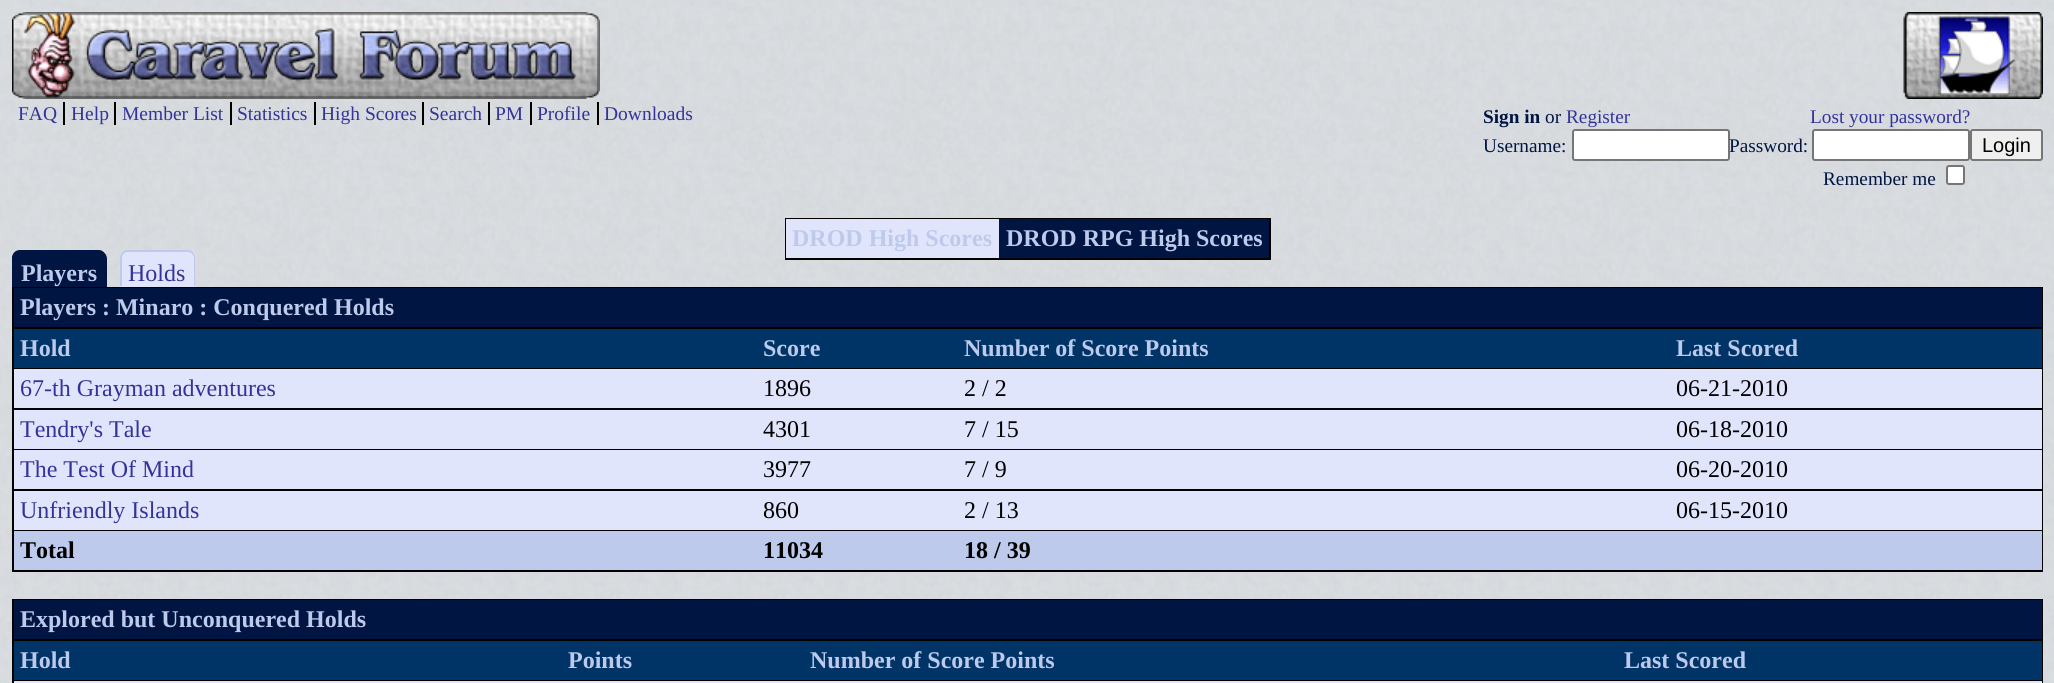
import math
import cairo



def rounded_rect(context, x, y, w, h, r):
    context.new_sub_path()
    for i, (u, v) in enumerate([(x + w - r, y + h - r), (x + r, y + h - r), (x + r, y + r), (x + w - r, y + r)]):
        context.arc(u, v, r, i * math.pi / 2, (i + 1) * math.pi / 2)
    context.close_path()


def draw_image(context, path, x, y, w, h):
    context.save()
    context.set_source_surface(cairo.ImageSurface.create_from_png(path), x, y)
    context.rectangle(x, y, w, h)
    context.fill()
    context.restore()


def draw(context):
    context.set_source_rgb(1, 1, 1)
    context.paint()
    draw_image(context, "images/1.png", 0, 0, 2054, 683)
    draw_image(context, "images/2.png", 12, 12, 588, 87)
    draw_image(context, "images/3.png", 1903, 12, 140, 87)
    context.set_source_rgb(0, 0, 0)
    context.rectangle(63, 102, 2, 23)
    context.fill()
    context.rectangle(114, 102, 2, 23)
    context.fill()
    context.rectangle(230, 102, 2, 23)
    context.fill()
    context.rectangle(314, 102, 2, 23)
    context.fill()
    context.rectangle(422, 102, 2, 23)
    context.fill()
    context.rectangle(488, 102, 2, 23)
    context.fill()
    context.rectangle(530, 102, 2, 23)
    context.fill()
    context.rectangle(597, 102, 2, 23)
    context.fill()
    context.set_source_rgb(1, 1, 1)
    rounded_rect(context, 1573, 130, 156, 30, 2)
    context.fill_preserve()
    context.set_source_rgb(118 / 255, 118 / 255, 118 / 255)
    context.stroke()
    context.set_source_rgb(1, 1, 1)
    rounded_rect(context, 1813, 130, 156, 30, 2)
    context.fill_preserve()
    context.set_source_rgb(118 / 255, 118 / 255, 118 / 255)
    context.stroke()
    context.set_source_rgb(239 / 255, 239 / 255, 239 / 255)
    rounded_rect(context, 1971, 130, 71, 30, 2)
    context.fill_preserve()
    context.set_source_rgb(118 / 255, 118 / 255, 118 / 255)
    context.stroke()
    context.set_source_rgb(1, 1, 1)
    rounded_rect(context, 1947, 166, 17, 18, 2)
    context.fill_preserve()
    context.set_source_rgb(118 / 255, 118 / 255, 118 / 255)
    context.stroke()
    context.set_source_rgb(0, 0, 0)
    context.rectangle(785, 218, 486, 42)
    context.fill()
    context.set_source_rgb(0, 21 / 255, 66 / 255)
    context.rectangle(999, 219, 270, 39)
    context.fill()
    context.set_source_rgb(225 / 255, 229 / 255, 252 / 255)
    context.rectangle(786, 219, 213, 39)
    context.fill()
    context.set_source_rgb(0, 21 / 255, 66 / 255)
    context.new_path()
    context.move_to(20, 251)
    context.line_to(99, 251)
    context.curve_to(103.5, 251, 107, 254.5, 107, 259)
    context.line_to(107, 287)
    context.line_to(12, 287)
    context.line_to(12, 259)
    context.curve_to(12, 254.5, 15.5, 251, 20, 251)
    context.close_path()
    context.fill()
    context.set_fill_rule(cairo.FillRule.EVEN_ODD)
    context.new_path()
    context.move_to(20, 250)
    context.line_to(99, 250)
    context.curve_to(103, 250, 106, 254, 106, 258)
    context.line_to(106, 286)
    context.line_to(12, 286)
    context.line_to(12, 258)
    context.curve_to(12, 254, 15, 250, 20, 250)
    context.close_path()
    context.move_to(20, 252)
    context.line_to(99, 252)
    context.curve_to(102, 252, 105, 255, 105, 258)
    context.line_to(105, 286)
    context.line_to(14, 286)
    context.line_to(14, 258)
    context.curve_to(14, 255, 16, 252, 20, 252)
    context.close_path()
    context.fill()
    context.set_source_rgb(225 / 255, 229 / 255, 252 / 255)
    context.new_path()
    context.move_to(128, 251)
    context.line_to(187, 251)
    context.curve_to(191.5, 251, 195, 254.5, 195, 259)
    context.line_to(195, 287)
    context.line_to(120, 287)
    context.line_to(120, 259)
    context.curve_to(120, 254.5, 123.5, 251, 128, 251)
    context.close_path()
    context.fill()
    context.set_source_rgb(189 / 255, 202 / 255, 236 / 255)
    context.new_path()
    context.move_to(128, 250)
    context.line_to(188, 250)
    context.curve_to(192, 250, 195, 254, 195, 258)
    context.line_to(195, 286)
    context.line_to(120, 286)
    context.line_to(120, 258)
    context.curve_to(120, 254, 123, 250, 128, 250)
    context.close_path()
    context.move_to(128, 252)
    context.line_to(188, 252)
    context.curve_to(191, 252, 194, 255, 194, 258)
    context.line_to(194, 286)
    context.line_to(122, 286)
    context.line_to(122, 258)
    context.curve_to(122, 255, 124, 252, 128, 252)
    context.close_path()
    context.fill()
    context.set_source_rgb(0, 0, 0)
    context.rectangle(12, 287, 2031, 285)
    context.fill()
    context.set_source_rgb(0, 21 / 255, 66 / 255)
    context.rectangle(14, 288, 2028, 39)
    context.fill()
    context.set_source_rgb(0, 51 / 255, 102 / 255)
    context.rectangle(14, 329, 2028, 39)
    context.fill()
    context.set_source_rgb(225 / 255, 229 / 255, 252 / 255)
    context.rectangle(14, 369, 2028, 39)
    context.fill()
    context.rectangle(14, 410, 2028, 39)
    context.fill()
    context.rectangle(14, 450, 2028, 39)
    context.fill()
    context.rectangle(14, 491, 2028, 39)
    context.fill()
    context.set_source_rgb(189 / 255, 202 / 255, 236 / 255)
    context.rectangle(14, 531, 2028, 39)
    context.fill()
    context.set_source_rgb(0, 0, 0)
    context.rectangle(12, 599, 2031, 84)
    context.fill()
    context.set_source_rgb(0, 21 / 255, 66 / 255)
    context.rectangle(14, 600, 2028, 39)
    context.fill()
    context.set_source_rgb(0, 51 / 255, 102 / 255)
    context.rectangle(14, 641, 2028, 39)
    context.fill()
    context.set_source_rgb(225 / 255, 229 / 255, 252 / 255)
    context.rectangle(14, 681, 2028, 2)
    context.fill()
    context.select_font_face("Liberation Serif")
    context.set_font_size(19.5)
    context.set_source_rgb(51 / 255, 51 / 255, 153 / 255)
    context.move_to(18, 120)
    context.show_text("FAQ")
    context.move_to(71, 120)
    context.show_text("Help")
    context.move_to(122, 120)
    context.show_text("Member List")
    context.move_to(237, 120)
    context.show_text("Statistics")
    context.move_to(321, 120)
    context.show_text("High Scores")
    context.move_to(429, 120)
    context.show_text("Search")
    context.move_to(495, 120)
    context.show_text("PM")
    context.move_to(537, 120)
    context.show_text("Profile")
    context.move_to(604, 120)
    context.show_text("Downloads")
    context.select_font_face("Liberation Serif", cairo.FontSlant.NORMAL, cairo.FontWeight.BOLD)
    context.set_font_size(19.25)
    context.set_source_rgb(0, 21 / 255, 66 / 255)
    context.move_to(1483, 123)
    context.show_text("Sign in")
    context.select_font_face("Liberation Serif")
    context.move_to(1545, 123)
    context.show_text("or")
    context.set_source_rgb(51 / 255, 51 / 255, 153 / 255)
    context.move_to(1566, 123)
    context.show_text("Register")
    context.move_to(1810, 123)
    context.show_text("Lost your password?")
    context.set_source_rgb(0, 21 / 255, 66 / 255)
    context.move_to(1483, 152)
    context.show_text("Username:")
    context.move_to(1729, 152)
    context.show_text("Password:")
    context.select_font_face("Liberation Sans")
    context.set_font_size(20)
    context.set_source_rgb(0, 0, 0)
    context.move_to(1982, 152)
    context.show_text("Login")
    context.select_font_face("Liberation Serif")
    context.set_font_size(19.25)
    context.set_source_rgb(0, 21 / 255, 66 / 255)
    context.move_to(1823, 185)
    context.show_text("Remember me")
    context.select_font_face("Liberation Serif", cairo.FontSlant.NORMAL, cairo.FontWeight.BOLD)
    context.set_font_size(24)
    context.set_source_rgb(189 / 255, 202 / 255, 236 / 255)
    context.move_to(792, 246)
    context.show_text("DROD High Scores")
    context.move_to(1006, 246)
    context.show_text("DROD RPG High Scores")
    context.move_to(21, 281)
    context.show_text("Players")
    context.select_font_face("Liberation Serif")
    context.set_source_rgb(51 / 255, 51 / 255, 153 / 255)
    context.move_to(128, 281)
    context.show_text("Holds")
    context.select_font_face("Liberation Serif", cairo.FontSlant.NORMAL, cairo.FontWeight.BOLD)
    context.set_source_rgb(189 / 255, 202 / 255, 236 / 255)
    context.move_to(20, 315)
    context.show_text("Players : Minaro : Conquered Holds")
    context.move_to(20, 356)
    context.show_text("Hold")
    context.move_to(763, 356)
    context.show_text("Score")
    context.move_to(964, 356)
    context.show_text("Number of Score Points")
    context.move_to(1676, 356)
    context.show_text("Last Scored")
    context.select_font_face("Liberation Serif")
    context.set_source_rgb(51 / 255, 51 / 255, 153 / 255)
    context.move_to(20, 396)
    context.show_text("67-th Grayman adventures")
    context.set_source_rgb(0, 0, 0)
    context.move_to(763, 396)
    context.show_text("1896")
    context.move_to(964, 396)
    context.show_text("2 / 2")
    context.move_to(1676, 396)
    context.show_text("06-21-2010")
    context.set_source_rgb(51 / 255, 51 / 255, 153 / 255)
    context.move_to(20, 437)
    context.show_text("Tendry's Tale")
    context.set_source_rgb(0, 0, 0)
    context.move_to(763, 437)
    context.show_text("4301")
    context.move_to(964, 437)
    context.show_text("7 / 15")
    context.move_to(1676, 437)
    context.show_text("06-18-2010")
    context.set_source_rgb(51 / 255, 51 / 255, 153 / 255)
    context.move_to(20, 477)
    context.show_text("The Test Of Mind")
    context.set_source_rgb(0, 0, 0)
    context.move_to(763, 477)
    context.show_text("3977")
    context.move_to(964, 477)
    context.show_text("7 / 9")
    context.move_to(1676, 477)
    context.show_text("06-20-2010")
    context.set_source_rgb(51 / 255, 51 / 255, 153 / 255)
    context.move_to(20, 518)
    context.show_text("Unfriendly Islands")
    context.set_source_rgb(0, 0, 0)
    context.move_to(763, 518)
    context.show_text("860")
    context.move_to(964, 518)
    context.show_text("2 / 13")
    context.move_to(1676, 518)
    context.show_text("06-15-2010")
    context.select_font_face("Liberation Serif", cairo.FontSlant.NORMAL, cairo.FontWeight.BOLD)
    context.move_to(20, 558)
    context.show_text("Total")
    context.move_to(763, 558)
    context.show_text("11034")
    context.move_to(964, 558)
    context.show_text("18 / 39")
    context.set_source_rgb(189 / 255, 202 / 255, 236 / 255)
    context.move_to(20, 627)
    context.show_text("Explored but Unconquered Holds")
    context.move_to(20, 668)
    context.show_text("Hold")
    context.move_to(568, 668)
    context.show_text("Points")
    context.move_to(810, 668)
    context.show_text("Number of Score Points")
    context.move_to(1624, 668)
    context.show_text("Last Scored")


surface = cairo.ImageSurface(cairo.Format.RGB24, 2054, 683)
context = cairo.Context(surface)
options = cairo.FontOptions()
options.set_hint_metrics(cairo.HintMetrics.OFF)
options.set_hint_style(cairo.HintStyle.NONE)
context.set_font_options(options)
context.set_miter_limit(4)
draw(context)
surface.write_to_png("out.png")
